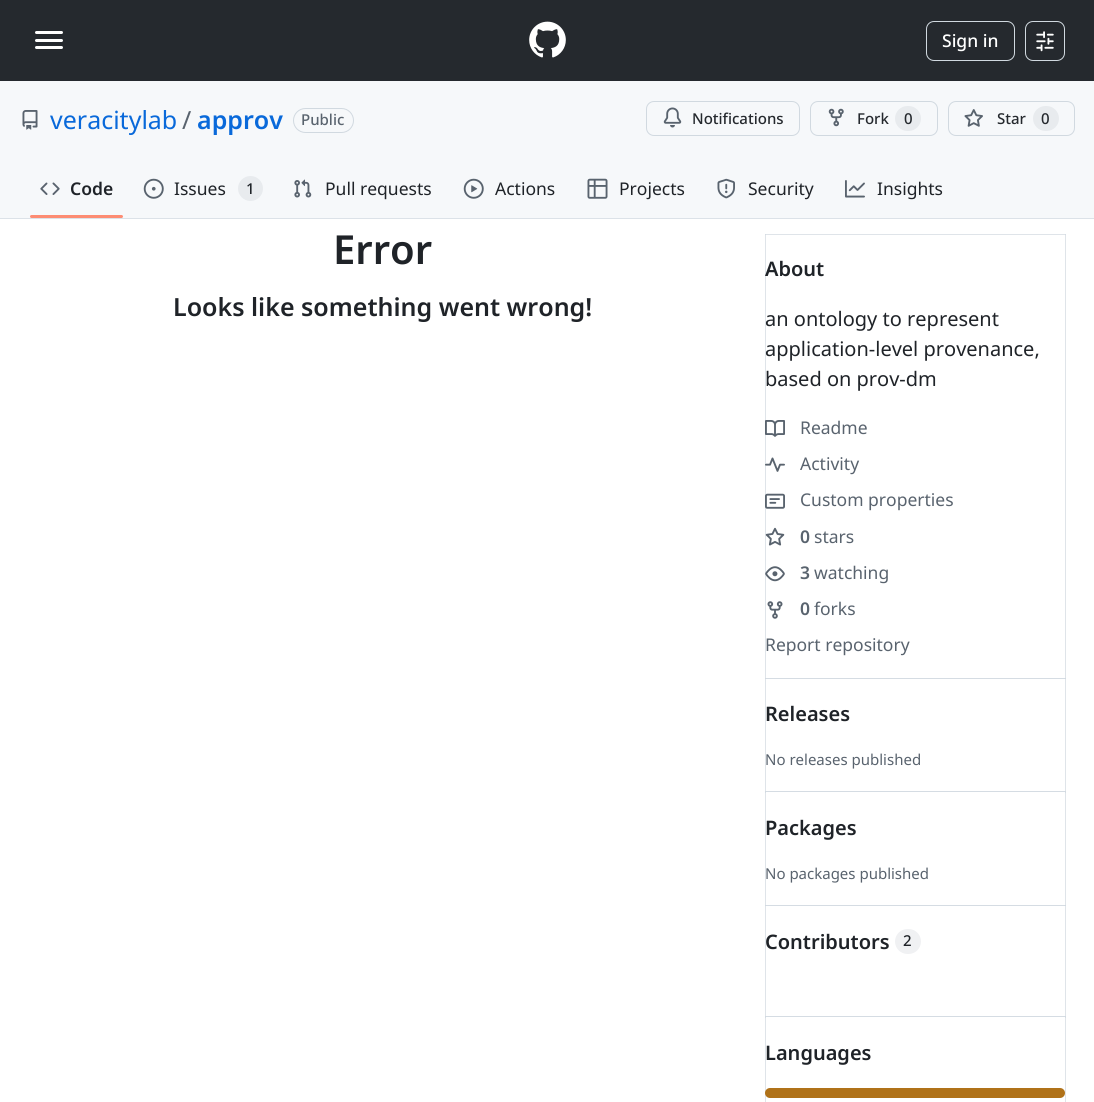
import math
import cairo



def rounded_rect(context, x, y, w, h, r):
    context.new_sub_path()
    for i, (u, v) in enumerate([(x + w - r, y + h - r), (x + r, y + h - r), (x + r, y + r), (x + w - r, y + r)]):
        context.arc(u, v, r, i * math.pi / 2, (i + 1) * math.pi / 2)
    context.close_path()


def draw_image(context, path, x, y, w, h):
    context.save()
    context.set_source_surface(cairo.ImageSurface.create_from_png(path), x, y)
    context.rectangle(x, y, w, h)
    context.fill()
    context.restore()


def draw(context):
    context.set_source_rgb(1, 1, 1)
    context.paint()
    context.set_source_rgb(223 / 255, 228 / 255, 233 / 255)
    context.rectangle(765, 234, 1, 868)
    context.fill()
    context.rectangle(1065, 234, 1, 868)
    context.fill()
    context.set_source_rgb(213 / 255, 220 / 255, 227 / 255)
    context.rectangle(765, 791, 1, 2)
    context.fill()
    context.rectangle(1065, 791, 1, 2)
    context.fill()
    context.rectangle(765, 1016, 1, 2)
    context.fill()
    context.rectangle(1065, 1016, 1, 2)
    context.fill()
    context.set_source_rgb(37 / 255, 41 / 255, 46 / 255)
    context.rectangle(0, 0, 1094, 81)
    context.fill()
    context.set_source_rgb(1, 1, 1)
    rounded_rect(context, 35, 31, 28, 3, 1.5)
    context.fill()
    rounded_rect(context, 35, 39, 28, 3, 1.5)
    context.fill()
    rounded_rect(context, 35, 46, 28, 3, 1.5)
    context.fill()
    draw_image(context, "images/1.png", 529, 21, 37, 37)
    rounded_rect(context, 926.5, 21.5, 88, 39, 7.5)
    context.set_source_rgb(209 / 255, 217 / 255, 224 / 255)
    context.set_line_width(1)
    context.stroke()
    rounded_rect(context, 1025.5, 21.5, 39, 39, 7.5)
    context.stroke()
    draw_image(context, "images/2.png", 1036, 31, 18, 21)
    context.set_source_rgb(246 / 255, 248 / 255, 250 / 255)
    context.rectangle(0, 81, 1094, 137)
    context.fill()
    draw_image(context, "images/3.png", 22, 110, 16, 20)
    rounded_rect(context, 293.5, 108.5, 60, 24, 12)
    context.set_source_rgb(209 / 255, 217 / 255, 224 / 255)
    context.stroke()
    rounded_rect(context, 646.5, 101.5, 153, 34, 7.5)
    context.stroke()
    draw_image(context, "images/4.png", 663, 107, 19, 21)
    rounded_rect(context, 810.5, 101.5, 127, 34, 7.5)
    context.stroke()
    draw_image(context, "images/5.png", 828, 108, 16, 19)
    context.set_source_rgb(232 / 255, 235 / 255, 238 / 255)
    rounded_rect(context, 895, 106, 26, 25, 12.5)
    context.fill()
    rounded_rect(context, 948.5, 101.5, 126, 34, 7.5)
    context.set_source_rgb(209 / 255, 217 / 255, 224 / 255)
    context.stroke()
    draw_image(context, "images/6.png", 964, 109, 19, 18)
    context.set_source_rgb(232 / 255, 235 / 255, 238 / 255)
    rounded_rect(context, 1033, 106, 26, 25, 12.5)
    context.fill()
    context.set_source_rgb(220 / 255, 226 / 255, 232 / 255)
    context.rectangle(0, 218, 1094, 1)
    context.fill()
    draw_image(context, "images/7.png", 40, 182, 20, 13)
    context.set_source_rgb(253 / 255, 140 / 255, 115 / 255)
    rounded_rect(context, 30, 215, 93, 3, 1.5)
    context.fill()
    draw_image(context, "images/8.png", 143, 178, 21, 21)
    context.set_source_rgb(232 / 255, 235 / 255, 238 / 255)
    context.arc(250.5, 188.5, 12.5, 0, 2 * math.pi)
    context.fill()
    draw_image(context, "images/9.png", 294, 179, 18, 19)
    draw_image(context, "images/10.png", 463, 178, 21, 21)
    draw_image(context, "images/11.png", 587, 178, 21, 21)
    draw_image(context, "images/12.png", 717, 178, 18, 21)
    draw_image(context, "images/13.png", 845, 180, 20, 18)
    context.set_source_rgb(223 / 255, 228 / 255, 233 / 255)
    context.rectangle(765, 234, 301, 1)
    context.fill()
    context.set_source_rgb(213 / 255, 220 / 255, 227 / 255)
    context.rectangle(765, 234, 1, 1)
    context.fill()
    context.rectangle(1065, 234, 1, 1)
    context.fill()
    draw_image(context, "images/14.png", 765, 420, 20, 17)
    draw_image(context, "images/15.png", 765, 457, 20, 15)
    draw_image(context, "images/16.png", 765, 493, 20, 16)
    draw_image(context, "images/17.png", 765, 527, 20, 19)
    draw_image(context, "images/18.png", 765, 566, 20, 16)
    draw_image(context, "images/19.png", 767, 601, 16, 18)
    context.rectangle(765, 678, 301, 1)
    context.fill()
    context.set_source_rgb(209 / 255, 217 / 255, 224 / 255)
    context.rectangle(765, 678, 1, 1)
    context.fill()
    context.rectangle(1065, 678, 1, 1)
    context.fill()
    context.set_source_rgb(213 / 255, 220 / 255, 227 / 255)
    context.rectangle(765, 791, 301, 1)
    context.fill()
    context.set_source_rgb(209 / 255, 217 / 255, 224 / 255)
    context.rectangle(765, 791, 1, 1)
    context.fill()
    context.rectangle(1065, 791, 1, 1)
    context.fill()
    context.set_source_rgb(213 / 255, 220 / 255, 227 / 255)
    context.rectangle(765, 905, 301, 1)
    context.fill()
    context.set_source_rgb(209 / 255, 217 / 255, 224 / 255)
    context.rectangle(765, 905, 1, 1)
    context.fill()
    context.rectangle(1065, 905, 1, 1)
    context.fill()
    context.set_source_rgb(240 / 255, 241 / 255, 243 / 255)
    rounded_rect(context, 895, 929, 26, 25, 12.5)
    context.fill()
    context.set_source_rgb(213 / 255, 220 / 255, 227 / 255)
    context.rectangle(765, 1016, 301, 1)
    context.fill()
    context.set_source_rgb(209 / 255, 217 / 255, 224 / 255)
    context.rectangle(765, 1016, 1, 1)
    context.fill()
    context.rectangle(1065, 1016, 1, 1)
    context.fill()
    context.set_source_rgb(176 / 255, 114 / 255, 25 / 255)
    rounded_rect(context, 765, 1088, 300, 10, 5)
    context.fill()
    context.select_font_face("Noto Sans Medium")
    context.set_font_size(17.5)
    context.set_source_rgb(1, 1, 1)
    context.move_to(942, 47)
    context.show_text("Sign in")
    context.select_font_face("Noto Sans")
    context.set_font_size(25)
    context.set_source_rgb(9 / 255, 105 / 255, 218 / 255)
    context.move_to(50, 129)
    context.show_text("veracitylab")
    context.set_source_rgb(89 / 255, 99 / 255, 110 / 255)
    context.move_to(182, 129)
    context.show_text("/")
    context.select_font_face("Noto Sans SemiBold")
    context.set_source_rgb(9 / 255, 105 / 255, 218 / 255)
    context.move_to(197, 129)
    context.show_text("approv")
    context.select_font_face("Noto Sans Medium")
    context.set_font_size(15)
    context.set_source_rgb(89 / 255, 99 / 255, 110 / 255)
    context.move_to(301, 125)
    context.show_text("Public")
    context.set_source_rgb(37 / 255, 41 / 255, 46 / 255)
    context.move_to(692, 124)
    context.show_text("Notifications")
    context.move_to(857, 124)
    context.show_text("Fork")
    context.move_to(904, 124)
    context.show_text("0")
    context.move_to(997, 124)
    context.show_text("Star")
    context.move_to(1041, 124)
    context.show_text("0")
    context.select_font_face("Noto Sans SemiBold")
    context.set_font_size(17.5)
    context.set_source_rgb(31 / 255, 35 / 255, 40 / 255)
    context.move_to(70, 195)
    context.show_text("Code")
    context.select_font_face("Noto Sans")
    context.move_to(174, 195)
    context.show_text("Issues")
    context.select_font_face("Noto Sans Medium")
    context.set_font_size(15)
    context.move_to(246, 194)
    context.show_text("1")
    context.select_font_face("Noto Sans")
    context.set_font_size(17.5)
    context.move_to(325, 195)
    context.show_text("Pull requests")
    context.move_to(495, 195)
    context.show_text("Actions")
    context.move_to(619, 195)
    context.show_text("Projects")
    context.move_to(748, 195)
    context.show_text("Security")
    context.move_to(877, 195)
    context.show_text("Insights")
    context.select_font_face("Noto Sans SemiBold")
    context.set_font_size(40)
    context.move_to(333, 264)
    context.show_text("Error")
    context.set_font_size(25)
    context.move_to(173, 316)
    context.show_text("Looks like something went wrong!")
    context.set_font_size(20)
    context.move_to(765, 276)
    context.show_text("About")
    context.select_font_face("Noto Sans")
    context.move_to(765, 326)
    context.show_text("an ontology to represent")
    context.move_to(765, 356)
    context.show_text("application-level provenance,")
    context.move_to(765, 386)
    context.show_text("based on prov-dm")
    context.set_font_size(17.5)
    context.set_source_rgb(89 / 255, 99 / 255, 110 / 255)
    context.move_to(800, 434)
    context.show_text("Readme")
    context.move_to(800, 470)
    context.show_text("Activity")
    context.move_to(800, 506)
    context.show_text("Custom properties")
    context.select_font_face("Noto Sans SemiBold")
    context.move_to(800, 543)
    context.show_text("0")
    context.select_font_face("Noto Sans")
    context.move_to(814, 543)
    context.show_text("stars")
    context.select_font_face("Noto Sans SemiBold")
    context.move_to(800, 579)
    context.show_text("3")
    context.select_font_face("Noto Sans")
    context.move_to(814, 579)
    context.show_text("watching")
    context.select_font_face("Noto Sans SemiBold")
    context.move_to(800, 615)
    context.show_text("0")
    context.select_font_face("Noto Sans")
    context.move_to(814, 615)
    context.show_text("forks")
    context.move_to(765, 651)
    context.show_text("Report repository")
    context.select_font_face("Noto Sans SemiBold")
    context.set_font_size(20)
    context.set_source_rgb(31 / 255, 35 / 255, 40 / 255)
    context.move_to(765, 721)
    context.show_text("Releases")
    context.select_font_face("Noto Sans")
    context.set_font_size(15)
    context.set_source_rgb(89 / 255, 99 / 255, 110 / 255)
    context.move_to(765, 765)
    context.show_text("No releases published")
    context.select_font_face("Noto Sans SemiBold")
    context.set_font_size(20)
    context.set_source_rgb(31 / 255, 35 / 255, 40 / 255)
    context.move_to(765, 835)
    context.show_text("Packages")
    context.select_font_face("Noto Sans")
    context.set_font_size(15)
    context.set_source_rgb(89 / 255, 99 / 255, 110 / 255)
    context.move_to(765, 879)
    context.show_text("No packages published")
    context.select_font_face("Noto Sans SemiBold")
    context.set_font_size(20)
    context.set_source_rgb(31 / 255, 35 / 255, 40 / 255)
    context.move_to(765, 949)
    context.show_text("Contributors")
    context.select_font_face("Noto Sans Medium")
    context.set_font_size(15)
    context.move_to(903, 946)
    context.show_text("2")
    context.select_font_face("Noto Sans SemiBold")
    context.set_font_size(20)
    context.move_to(765, 1060)
    context.show_text("Languages")


surface = cairo.ImageSurface(cairo.Format.RGB24, 1094, 1102)
context = cairo.Context(surface)
options = cairo.FontOptions()
options.set_hint_metrics(cairo.HintMetrics.OFF)
options.set_hint_style(cairo.HintStyle.NONE)
context.set_font_options(options)
context.set_miter_limit(4)
draw(context)
surface.write_to_png("out.png")
